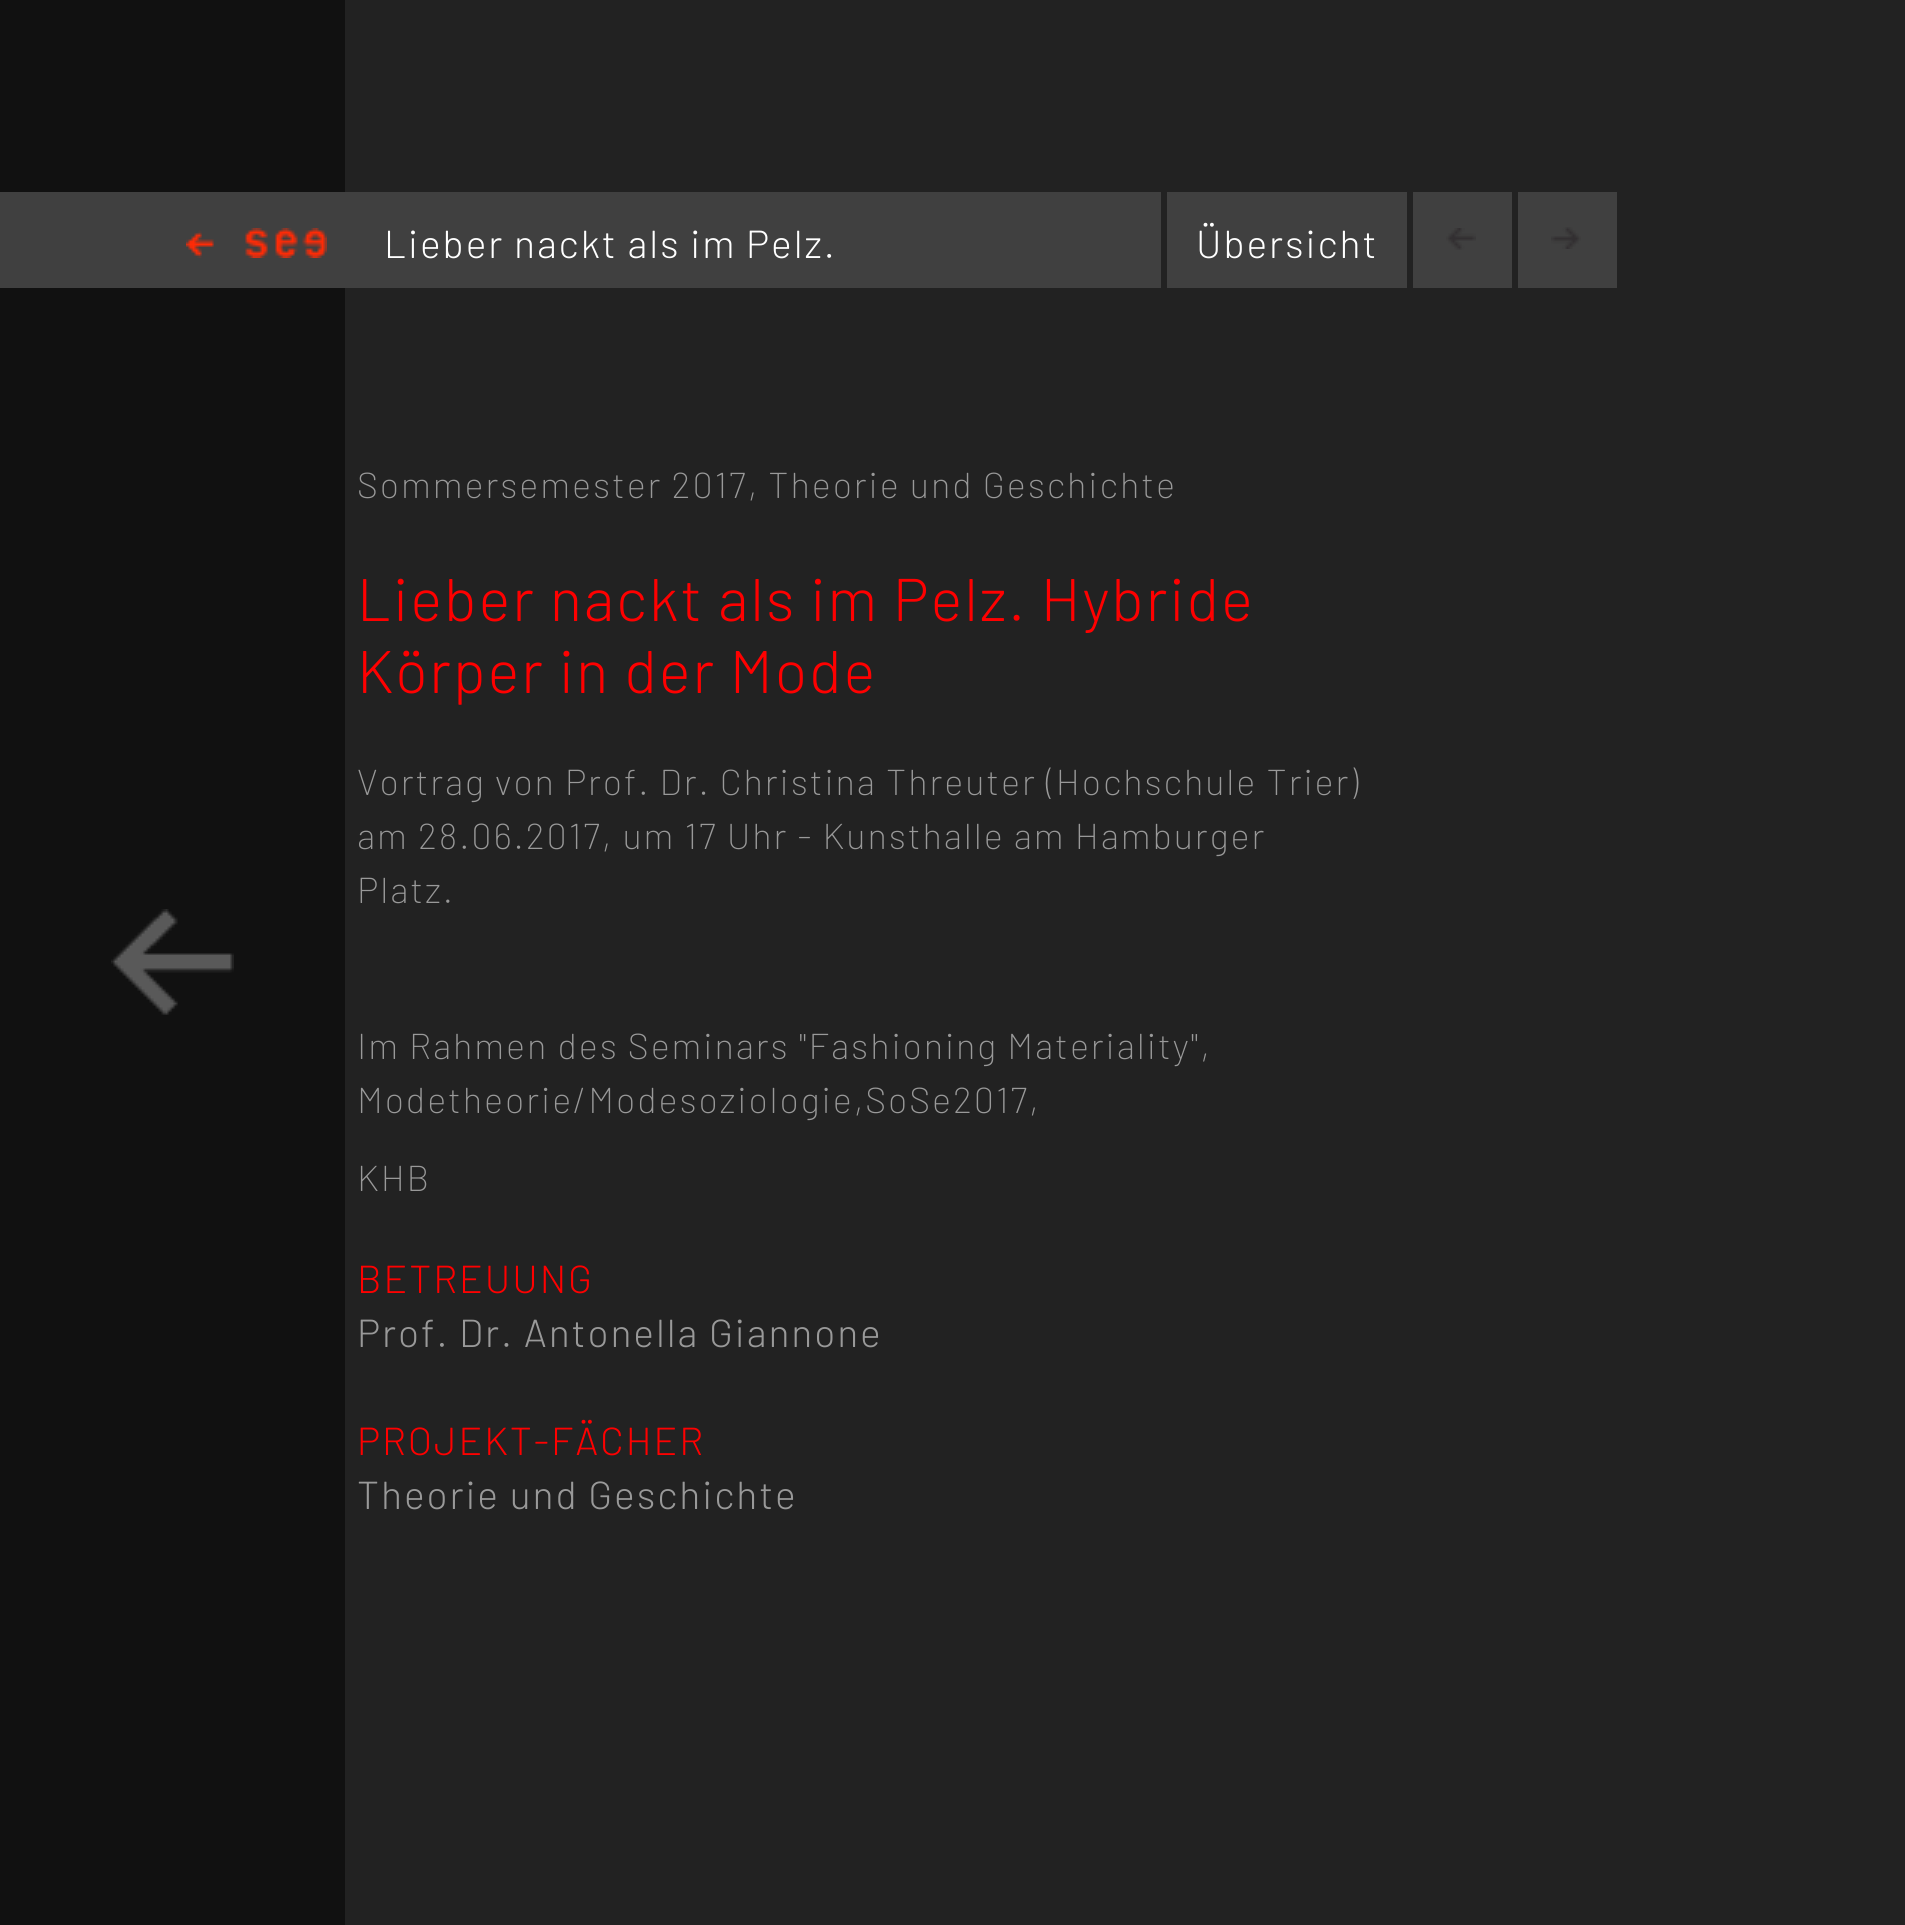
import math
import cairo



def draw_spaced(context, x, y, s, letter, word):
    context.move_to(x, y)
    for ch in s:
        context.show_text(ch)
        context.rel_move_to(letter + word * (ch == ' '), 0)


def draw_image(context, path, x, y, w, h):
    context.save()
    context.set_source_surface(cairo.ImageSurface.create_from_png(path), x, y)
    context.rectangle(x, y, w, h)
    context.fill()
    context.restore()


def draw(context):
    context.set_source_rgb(34 / 255, 34 / 255, 34 / 255)
    context.paint()
    context.set_source_rgb(17 / 255, 17 / 255, 17 / 255)
    context.rectangle(0, 0, 345, 1925)
    context.fill()
    draw_image(context, "images/1.png", 111, 909, 123, 106)
    context.set_source_rgb(64 / 255, 64 / 255, 64 / 255)
    context.rectangle(0, 192, 1161, 96)
    context.fill()
    draw_image(context, "images/2.png", 186, 228, 141, 30)
    context.rectangle(1167, 192, 240, 96)
    context.fill()
    context.rectangle(1413, 192, 99, 96)
    context.fill()
    draw_image(context, "images/3.png", 1446, 228, 30, 22)
    context.rectangle(1518, 192, 99, 96)
    context.fill()
    draw_image(context, "images/4.png", 1551, 227, 30, 22)
    context.select_font_face("Barlow Light")
    context.set_font_size(39)
    context.set_source_rgb(1, 1, 1)
    draw_spaced(context, 384, 258, "Lieber nackt als im Pelz.", 1.95, 0)
    draw_spaced(context, 1196, 258, "Übersicht", 1.95, 0)
    context.select_font_face("Barlow ExtraLight")
    context.set_font_size(36)
    context.set_source_rgb(153 / 255, 153 / 255, 153 / 255)
    draw_spaced(context, 357, 498, "Sommersemester 2017, Theorie und Geschichte", 1.95, 0)
    context.select_font_face("Barlow Light")
    context.set_font_size(60)
    context.set_source_rgb(1, 0, 0)
    draw_spaced(context, 357, 621, "Lieber nackt als im Pelz. Hybride", 1.95, 0)
    draw_spaced(context, 357, 693, "Körper in der Mode", 1.95, 0)
    context.select_font_face("Barlow ExtraLight")
    context.set_font_size(36)
    context.set_source_rgb(153 / 255, 153 / 255, 153 / 255)
    draw_spaced(context, 357, 795, "Vortrag von Prof. Dr. Christina Threuter (Hochschule Trier)", 1.95, 0)
    draw_spaced(context, 357, 849, "am 28.06.2017, um 17 Uhr - Kunsthalle am Hamburger", 1.95, 0)
    draw_spaced(context, 357, 903, "Platz.", 1.95, 0)
    draw_spaced(context, 357, 1059, "Im Rahmen des Seminars \"Fashioning Materiality\",", 1.95, 0)
    draw_spaced(context, 357, 1113, "Modetheorie/Modesoziologie,SoSe2017,", 1.95, 0)
    draw_spaced(context, 357, 1191, "KHB", 1.95, 0)
    context.select_font_face("Barlow Light")
    context.set_font_size(39)
    context.set_source_rgb(1, 0, 0)
    draw_spaced(context, 357, 1293, "BETREUUNG", 1.95, 0)
    context.set_source_rgb(153 / 255, 153 / 255, 153 / 255)
    draw_spaced(context, 357, 1347, "Prof. Dr. Antonella Giannone", 1.95, 0)
    context.set_source_rgb(1, 0, 0)
    draw_spaced(context, 357, 1455, "PROJEKT-FÄCHER", 1.95, 0)
    context.set_source_rgb(153 / 255, 153 / 255, 153 / 255)
    draw_spaced(context, 357, 1509, "Theorie und Geschichte", 1.95, 0)


surface = cairo.ImageSurface(cairo.Format.RGB24, 1905, 1925)
context = cairo.Context(surface)
options = cairo.FontOptions()
options.set_hint_metrics(cairo.HintMetrics.OFF)
options.set_hint_style(cairo.HintStyle.NONE)
context.set_font_options(options)
context.set_miter_limit(4)
draw(context)
surface.write_to_png("out.png")
